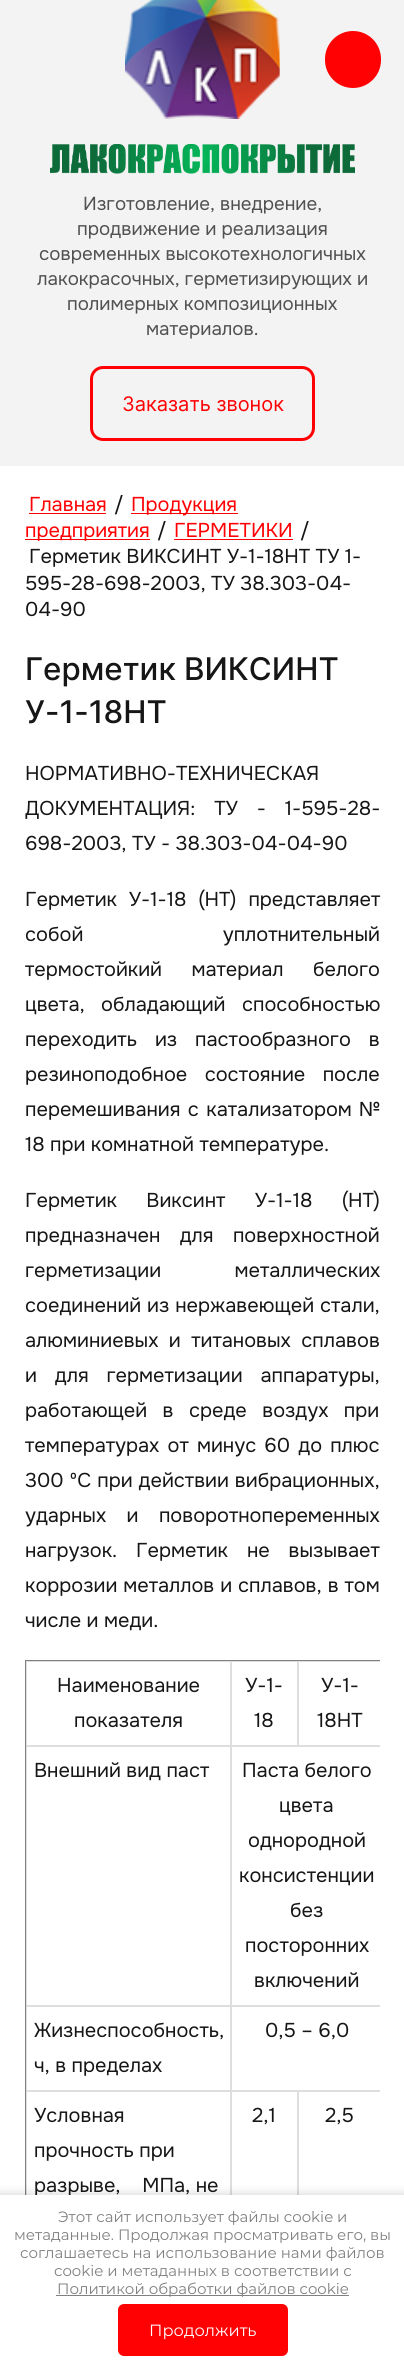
import math
import cairo



def draw_spaced(context, x, y, s, letter, word):
    context.move_to(x, y)
    for ch in s:
        context.show_text(ch)
        context.rel_move_to(letter + word * (ch == ' '), 0)


def rounded_rect(context, x, y, w, h, r):
    context.new_sub_path()
    for i, (u, v) in enumerate([(x + w - r, y + h - r), (x + r, y + h - r), (x + r, y + r), (x + w - r, y + r)]):
        context.arc(u, v, r, i * math.pi / 2, (i + 1) * math.pi / 2)
    context.close_path()


def draw_shadow(context, x, y, w, h, r, blur, alpha):
    context.push_group_with_content(cairo.Content.ALPHA)
    context.set_operator(cairo.Operator.SOURCE)
    for i in range(15, -16, -2):
        e = blur * i / 6
        if min(w, h) + 2 * e > 0:
            context.set_source_rgba(0, 0, 0, alpha * math.erfc((i - 1) / 8.5) / 2)
            rounded_rect(context, x - e, y - e, w + 2 * e, h + 2 * e, max(0, min(r + e + blur * .6, min(w, h) / 2 + e)))
            context.fill()
    context.mask(context.pop_group())


def draw_image(context, path, x, y, w, h):
    context.save()
    context.set_source_surface(cairo.ImageSurface.create_from_png(path), x, y)
    context.rectangle(x, y, w, h)
    context.fill()
    context.restore()


def draw(context):
    context.set_source_rgb(1, 1, 1)
    context.paint()
    context.set_source_rgb(243 / 255, 243 / 255, 243 / 255)
    context.rectangle(0, 0, 404, 466)
    context.fill()
    context.set_source_rgb(1, 0, 3 / 255)
    rounded_rect(context, 325, 31, 56, 57, 28)
    context.fill()
    draw_image(context, "images/1.png", 125, 0, 155, 119)
    draw_image(context, "images/2.png", 50, 144, 305, 30)
    rounded_rect(context, 91.5, 367.5, 222, 72, 11.5)
    context.set_line_width(3)
    context.stroke()
    context.rectangle(29, 513, 77, 1)
    context.fill()
    context.rectangle(131, 513, 107, 1)
    context.fill()
    context.rectangle(25, 539, 125, 1)
    context.fill()
    context.rectangle(174, 539, 119, 1)
    context.fill()
    context.set_source_rgb(128 / 255, 128 / 255, 128 / 255)
    context.rectangle(25, 1660, 355, 1)
    context.fill()
    context.rectangle(25, 1660, 1, 535)
    context.fill()
    context.rectangle(26.5, 1661.5, 204, 84)
    context.set_source_rgb(222 / 255, 222 / 255, 222 / 255)
    context.set_line_width(1)
    context.stroke()
    context.rectangle(231.5, 1661.5, 66, 84)
    context.stroke()
    context.save()
    context.rectangle(25, 1660, 355, 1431)
    context.clip()
    context.rectangle(298.5, 1661.5, 84, 84)
    context.stroke()
    context.restore()
    context.rectangle(26.5, 1746.5, 204, 259)
    context.stroke()
    context.save()
    context.rectangle(25, 1660, 355, 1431)
    context.clip()
    context.rectangle(231.5, 1746.5, 151, 259)
    context.stroke()
    context.restore()
    context.rectangle(26.5, 2006.5, 204, 84)
    context.stroke()
    context.save()
    context.rectangle(25, 1660, 355, 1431)
    context.clip()
    context.rectangle(231.5, 2006.5, 151, 84)
    context.stroke()
    context.restore()
    context.rectangle(26.5, 2091.5, 204, 154)
    context.stroke()
    context.rectangle(231.5, 2091.5, 66, 154)
    context.stroke()
    context.save()
    context.rectangle(25, 1660, 355, 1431)
    context.clip()
    context.rectangle(298.5, 2091.5, 84, 154)
    context.stroke()
    context.restore()
    context.set_source_rgb(0, 0, 0)
    draw_shadow(context, 0, 2196, 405, 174, 0, 6, 0.23)
    context.select_font_face("Onest")
    context.set_font_size(18.75)
    context.set_source_rgb(81 / 255, 81 / 255, 81 / 255)
    context.move_to(83, 210)
    context.show_text("Изготовление, внедрение,")
    context.move_to(77, 235)
    context.show_text("продвижение и реализация")
    context.move_to(39, 260)
    context.show_text("современных высокотехнологичных")
    context.move_to(37, 285)
    context.show_text("лакокрасочных, герметизирующих и")
    context.move_to(67, 310)
    context.show_text("полимерных композиционных")
    context.move_to(146, 335)
    context.show_text("материалов.")
    context.select_font_face("Inter")
    context.set_font_size(20)
    context.set_source_rgb(1, 0, 3 / 255)
    context.move_to(122, 411)
    context.show_text("Заказать звонок")
    context.select_font_face("Onest")
    context.move_to(29, 511)
    context.show_text("Главная")
    context.set_source_rgb(22 / 255, 22 / 255, 22 / 255)
    context.move_to(114, 511)
    context.show_text("/")
    context.set_source_rgb(1, 0, 3 / 255)
    context.move_to(131, 511)
    context.show_text("Продукция")
    context.move_to(25, 537)
    context.show_text("предприятия")
    context.set_source_rgb(22 / 255, 22 / 255, 22 / 255)
    context.move_to(157, 537)
    context.show_text("/")
    context.set_source_rgb(1, 0, 3 / 255)
    context.move_to(174, 537)
    context.show_text("ГЕРМЕТИКИ")
    context.set_source_rgb(22 / 255, 22 / 255, 22 / 255)
    context.move_to(300, 537)
    context.show_text("/")
    context.move_to(29, 563)
    context.show_text("Герметик ВИКСИНТ У-1-18НТ ТУ 1-")
    context.move_to(25, 590)
    context.show_text("595-28-698-2003, ТУ 38.303-04-")
    context.move_to(25, 616)
    context.show_text("04-90")
    context.select_font_face("Inter Medium")
    context.set_font_size(31.25)
    context.move_to(25, 680)
    context.show_text("Герметик ВИКСИНТ")
    context.move_to(25, 723)
    context.show_text("У-1-18НТ")
    context.select_font_face("Onest")
    context.set_font_size(20)
    context.move_to(25, 780)
    context.show_text("НОРМАТИВНО-ТЕХНИЧЕСКАЯ")
    draw_spaced(context, 25, 815, "ДОКУМЕНТАЦИЯ: ТУ - 1-595-28-", 0, 13.5)
    context.move_to(25, 850)
    context.show_text("698-2003, ТУ - 38.303-04-04-90")
    draw_spaced(context, 25, 906, "Герметик У-1-18 (НТ) представляет", 0, 6.5)
    draw_spaced(context, 25, 941, "собой уплотнительный", 0, 134)
    draw_spaced(context, 25, 976, "термостойкий материал белого", 0, 24)
    draw_spaced(context, 25, 1011, "цвета, обладающий способностью", 0, 11)
    draw_spaced(context, 25, 1046, "переходить из пастообразного в", 0, 12.5)
    draw_spaced(context, 25, 1081, "резиноподобное состояние после", 0, 12)
    draw_spaced(context, 25, 1116, "перемешивания с катализатором №", 0, 2)
    context.move_to(25, 1151)
    context.show_text("18 при комнатной температуре.")
    draw_spaced(context, 25, 1207, "Герметик Виксинт У-1-18 (НТ)", 0, 24)
    draw_spaced(context, 25, 1242, "предназначен для поверхностной", 0, 14)
    draw_spaced(context, 25, 1277, "герметизации металлических", 0, 68)
    draw_spaced(context, 25, 1312, "соединений из нержавеющей стали,", 0, 0.5)
    draw_spaced(context, 25, 1347, "алюминиевых и титановых сплавов", 0, 5)
    draw_spaced(context, 25, 1382, "и для герметизации аппаратуры,", 0, 12.5)
    draw_spaced(context, 25, 1417, "работающей в среде воздух при", 0, 10)
    draw_spaced(context, 25, 1452, "температурах от минус 60 до плюс", 0, 2.75)
    draw_spaced(context, 25, 1487, "300 ºС при действии вибрационных,", 0, 0.5)
    draw_spaced(context, 25, 1522, "ударных и поворотнопеременных", 0, 15)
    draw_spaced(context, 25, 1557, "нагрузок. Герметик не вызывает", 0, 13.5)
    draw_spaced(context, 25, 1592, "коррозии металлов и сплавов, в том", 0, 0.5)
    context.move_to(25, 1627)
    context.show_text("числе и меди.")
    context.move_to(57, 1692)
    context.show_text("Наименование")
    context.move_to(74, 1727)
    context.show_text("показателя")
    context.move_to(245, 1692)
    context.show_text("У-1-")
    context.move_to(254, 1727)
    context.show_text("18")
    context.move_to(321, 1692)
    context.show_text("У-1-")
    context.move_to(317, 1727)
    context.show_text("18НТ")
    context.move_to(34, 1777)
    context.show_text("Внешний вид паст")
    context.move_to(242, 1777)
    context.show_text("Паста белого")
    context.move_to(279, 1812)
    context.show_text("цвета")
    context.move_to(248, 1847)
    context.show_text("однородной")
    context.move_to(239, 1882)
    context.show_text("консистенции")
    context.move_to(290, 1917)
    context.show_text("без")
    context.move_to(245, 1952)
    context.show_text("посторонних")
    context.move_to(254, 1987)
    context.show_text("включений")
    context.move_to(34, 2037)
    context.show_text("Жизнеспособность,")
    context.move_to(34, 2072)
    context.show_text("ч, в пределах")
    context.move_to(265, 2037)
    context.show_text("0,5 – 6,0")
    context.move_to(34, 2122)
    context.show_text("Условная")
    context.move_to(34, 2157)
    context.show_text("прочность при")
    context.move_to(34, 2192)
    context.show_text("разрыве,    МПа, не")
    context.move_to(252, 2122)
    context.show_text("2,1")
    context.move_to(325, 2122)
    context.show_text("2,5")
    context.set_source_rgb(1, 1, 1)
    context.rectangle(0, 2195, 404, 173)
    context.fill()
    context.select_font_face("Montserrat")
    context.set_font_size(15)
    context.set_source_rgb(128 / 255, 128 / 255, 128 / 255)
    context.move_to(58, 2222)
    context.show_text("Этот сайт использует файлы cookie и")
    context.move_to(14, 2240)
    context.show_text("метаданные. Продолжая просматривать его, вы")
    context.move_to(20, 2258)
    context.show_text("соглашаетесь на использование нами файлов")
    context.move_to(54, 2276)
    context.show_text("cookie и метаданных в соответствии с")
    context.rectangle(56, 2295, 293, 1)
    context.fill()
    context.move_to(57, 2294)
    context.show_text("Политикой обработки файлов cookie")
    context.set_source_rgb(1, 0, 3 / 255)
    rounded_rect(context, 118, 2304, 170, 52, 6)
    context.fill()
    context.set_font_size(16.25)
    context.set_source_rgb(1, 1, 1)
    context.move_to(149, 2336)
    context.show_text("Продолжить")


surface = cairo.ImageSurface(cairo.Format.RGB24, 404, 2368)
context = cairo.Context(surface)
options = cairo.FontOptions()
options.set_hint_metrics(cairo.HintMetrics.OFF)
options.set_hint_style(cairo.HintStyle.NONE)
context.set_font_options(options)
context.set_miter_limit(4)
draw(context)
surface.write_to_png("out.png")
